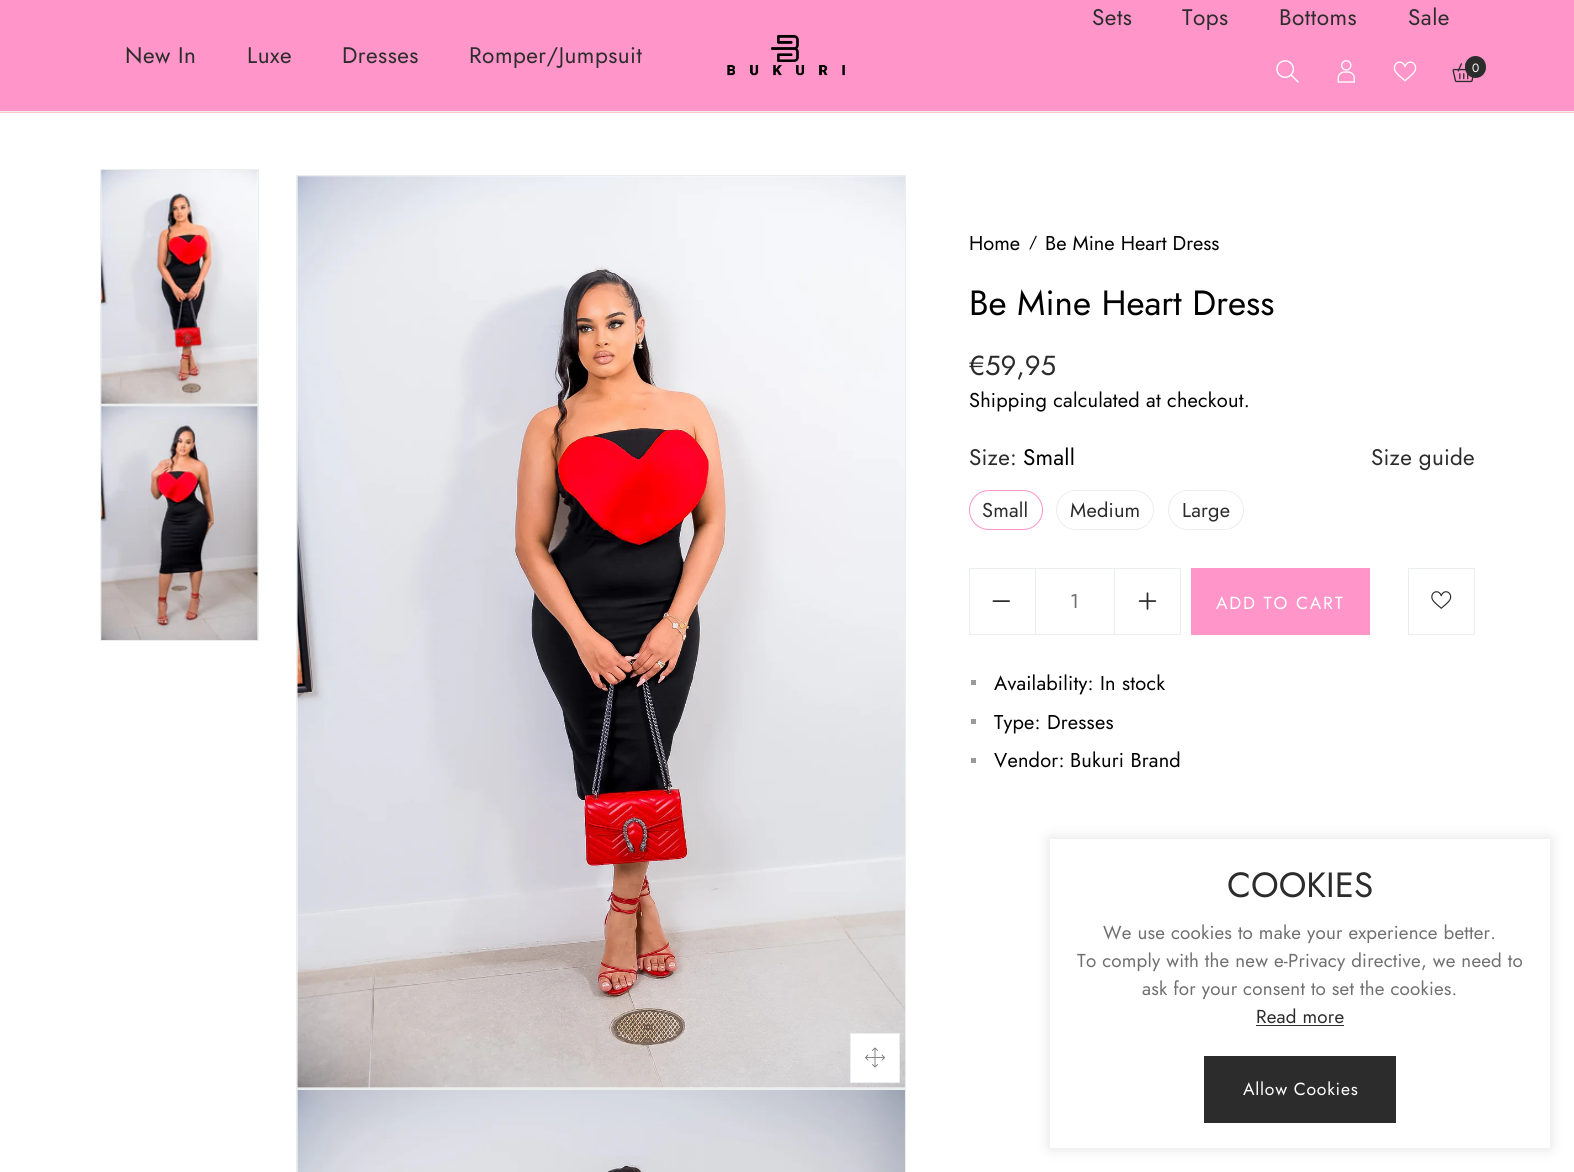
import math
import cairo



def draw_spaced(context, x, y, s, letter, word):
    context.move_to(x, y)
    for ch in s:
        context.show_text(ch)
        context.rel_move_to(letter + word * (ch == ' '), 0)


def rounded_rect(context, x, y, w, h, r):
    context.new_sub_path()
    for i, (u, v) in enumerate([(x + w - r, y + h - r), (x + r, y + h - r), (x + r, y + r), (x + w - r, y + r)]):
        context.arc(u, v, r, i * math.pi / 2, (i + 1) * math.pi / 2)
    context.close_path()


def draw_shadow(context, x, y, w, h, r, blur, alpha):
    context.push_group_with_content(cairo.Content.ALPHA)
    context.set_operator(cairo.Operator.SOURCE)
    for i in range(15, -16, -2):
        e = blur * i / 6
        if min(w, h) + 2 * e > 0:
            context.set_source_rgba(0, 0, 0, alpha * math.erfc((i - 1) / 8.5) / 2)
            rounded_rect(context, x - e, y - e, w + 2 * e, h + 2 * e, max(0, min(r + e + blur * .6, min(w, h) / 2 + e)))
            context.fill()
    context.mask(context.pop_group())


def draw_image(context, path, x, y, w, h):
    context.save()
    context.set_source_surface(cairo.ImageSurface.create_from_png(path), x, y)
    context.rectangle(x, y, w, h)
    context.fill()
    context.restore()


def draw(context):
    context.set_source_rgb(1, 1, 1)
    context.paint()
    context.set_source_rgb(1, 198 / 255, 198 / 255)
    context.rectangle(0, 112, 1574, 1)
    context.fill()
    context.set_source_rgb(238 / 255, 238 / 255, 238 / 255)
    context.rectangle(0, 111, 1574, 1)
    context.fill()
    context.set_source_rgb(1, 149 / 255, 201 / 255)
    context.rectangle(0, 0, 1574, 111)
    context.fill()
    draw_image(context, "images/1.png", 727, 34, 118, 42)
    draw_image(context, "images/2.png", 1276, 60, 23, 23)
    draw_image(context, "images/3.png", 1337, 60, 18, 23)
    draw_image(context, "images/4.png", 1393, 61, 24, 21)
    draw_image(context, "images/5.png", 1452, 63, 22, 20)
    context.set_source_rgb(44 / 255, 44 / 255, 44 / 255)
    rounded_rect(context, 1465, 56, 21, 22, 10.5)
    context.fill()
    context.rectangle(100.5, 169.5, 158, 235)
    context.set_source_rgb(235 / 255, 238 / 255, 238 / 255)
    context.set_line_width(1)
    context.stroke()
    draw_image(context, "images/6.png", 101, 170, 157, 234)
    context.rectangle(100.5, 405.5, 158, 235)
    context.stroke()
    draw_image(context, "images/7.png", 101, 406, 157, 234)
    context.rectangle(296.5, 175.5, 609, 913)
    context.stroke()
    draw_image(context, "images/8.png", 297, 176, 608, 912)
    context.set_source_rgb(1, 1, 1)
    context.rectangle(850.5, 1033.5, 49, 49)
    context.fill_preserve()
    context.set_source_rgb(235 / 255, 238 / 255, 238 / 255)
    context.stroke()
    draw_image(context, "images/9.png", 865, 1047, 20, 21)
    context.rectangle(296.5, 1089.5, 609, 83)
    context.stroke()
    draw_image(context, "images/10.png", 297, 1090, 608, 82)
    rounded_rect(context, 969.5, 490.5, 73, 39, 19.5)
    context.set_source_rgb(1, 149 / 255, 201 / 255)
    context.stroke()
    rounded_rect(context, 1056.5, 490.5, 97, 39, 19.5)
    context.set_source_rgb(235 / 255, 238 / 255, 238 / 255)
    context.stroke()
    rounded_rect(context, 1168.5, 490.5, 75, 39, 19.5)
    context.stroke()
    context.rectangle(969.5, 568.5, 211, 66)
    context.stroke()
    context.rectangle(1035, 568, 1, 67)
    context.fill()
    draw_image(context, "images/11.png", 992, 600, 18, 2)
    context.rectangle(1114, 568, 1, 67)
    context.fill()
    draw_image(context, "images/12.png", 1138, 592, 19, 18)
    context.set_source_rgb(1, 149 / 255, 201 / 255)
    context.rectangle(1191, 568, 179, 67)
    context.fill()
    context.rectangle(1408.5, 568.5, 66, 66)
    context.set_source_rgb(235 / 255, 238 / 255, 238 / 255)
    context.stroke()
    draw_image(context, "images/13.png", 1431, 591, 21, 18)
    context.set_source_rgb(154 / 255, 154 / 255, 154 / 255)
    context.rectangle(971, 680, 5, 5)
    context.fill()
    context.rectangle(971, 719, 5, 5)
    context.fill()
    context.rectangle(971, 758, 5, 5)
    context.fill()
    context.set_source_rgb(0, 0, 0)
    draw_shadow(context, 1050, 839, 500, 309, 0, 7.5, 0.12)
    context.set_source_rgb(1, 1, 1)
    context.rectangle(1050, 839, 500, 309)
    context.fill()
    context.set_source_rgb(44 / 255, 44 / 255, 44 / 255)
    context.rectangle(1256, 1025, 88, 1)
    context.fill()
    context.rectangle(1204, 1056, 192, 67)
    context.fill()
    context.select_font_face("Jost")
    context.set_font_size(22.5)
    draw_spaced(context, 125, 63, "New In", 0.5, 0)
    draw_spaced(context, 247, 63, "Luxe", 0.5, 0)
    draw_spaced(context, 342, 63, "Dresses", 0.5, 0)
    draw_spaced(context, 469, 63, "Romper/Jumpsuit", 0.5, 0)
    draw_spaced(context, 1092, 25, "Sets", 0.5, 0)
    draw_spaced(context, 1182, 25, "Tops", 0.5, 0)
    draw_spaced(context, 1279, 25, "Bottoms", 0.5, 0)
    draw_spaced(context, 1408, 25, "Sale", 0.5, 0)
    context.set_font_size(12)
    context.set_source_rgb(1, 1, 1)
    context.move_to(1472, 72)
    context.show_text("0")
    context.set_font_size(20)
    context.set_source_rgb(0, 0, 0)
    context.move_to(969, 250)
    context.show_text("Home")
    context.set_font_size(16)
    context.move_to(1029, 247)
    context.show_text("/")
    context.set_font_size(20)
    context.move_to(1045, 250)
    context.show_text("Be Mine Heart Dress")
    context.set_font_size(35)
    context.move_to(969, 315)
    context.show_text("Be Mine Heart Dress")
    context.set_font_size(27.5)
    context.set_source_rgb(44 / 255, 44 / 255, 44 / 255)
    context.move_to(969, 375)
    context.show_text("€59,95")
    context.set_font_size(20)
    context.set_source_rgb(0, 0, 0)
    draw_spaced(context, 969, 407, "Shipping calculated at checkout.", 0.2, 0)
    context.set_font_size(22.5)
    context.set_source_rgb(44 / 255, 44 / 255, 44 / 255)
    draw_spaced(context, 969, 465, "Size:", 0.2, 0)
    context.set_source_rgb(0, 0, 0)
    draw_spaced(context, 1023, 465, "Small", 0.2, 0)
    context.set_source_rgb(44 / 255, 44 / 255, 44 / 255)
    draw_spaced(context, 1371, 465, "Size guide", 0.2, 0)
    context.set_font_size(20)
    draw_spaced(context, 982, 517, "Small", 0.2, 0)
    draw_spaced(context, 1070, 517, "Medium", 0.2, 0)
    draw_spaced(context, 1182, 517, "Large", 0.2, 0)
    context.set_source_rgb(112 / 255, 112 / 255, 112 / 255)
    draw_spaced(context, 1070, 608, "1", 0.2, 0)
    context.set_font_size(17.5)
    context.set_source_rgb(1, 1, 1)
    draw_spaced(context, 1216, 609, "ADD TO CART", 1.75, 0)
    context.set_font_size(20)
    context.set_source_rgb(0, 0, 0)
    draw_spaced(context, 994, 690, "Availability:", 0.2, 0)
    draw_spaced(context, 1100, 690, "In stock", 0.2, 0)
    draw_spaced(context, 994, 729, "Type:", 0.2, 0)
    draw_spaced(context, 1047, 729, "Dresses", 0.2, 0)
    draw_spaced(context, 994, 767, "Vendor:", 0.2, 0)
    draw_spaced(context, 1070, 767, "Bukuri Brand", 0.2, 0)
    context.set_font_size(35)
    context.set_source_rgb(44 / 255, 44 / 255, 44 / 255)
    context.move_to(1227, 897)
    context.show_text("COOKIES")
    context.set_font_size(18.75)
    context.set_source_rgb(112 / 255, 112 / 255, 112 / 255)
    draw_spaced(context, 1103, 939, "We use cookies to make your experience better.", 0.2, 0)
    draw_spaced(context, 1077, 967, "To comply with the new e-Privacy directive, we need to", 0.2, 0)
    draw_spaced(context, 1142, 995, "ask for your consent to set the cookies.", 0.2, 0)
    context.set_source_rgb(44 / 255, 44 / 255, 44 / 255)
    draw_spaced(context, 1256, 1023, "Read more", 0.2, 0)
    context.set_font_size(17.5)
    context.set_source_rgb(1, 1, 1)
    draw_spaced(context, 1243, 1095, "Allow Cookies", 0.75, 0)


surface = cairo.ImageSurface(cairo.Format.RGB24, 1574, 1172)
context = cairo.Context(surface)
options = cairo.FontOptions()
options.set_hint_metrics(cairo.HintMetrics.OFF)
options.set_hint_style(cairo.HintStyle.NONE)
context.set_font_options(options)
context.set_miter_limit(4)
draw(context)
surface.write_to_png("out.png")
